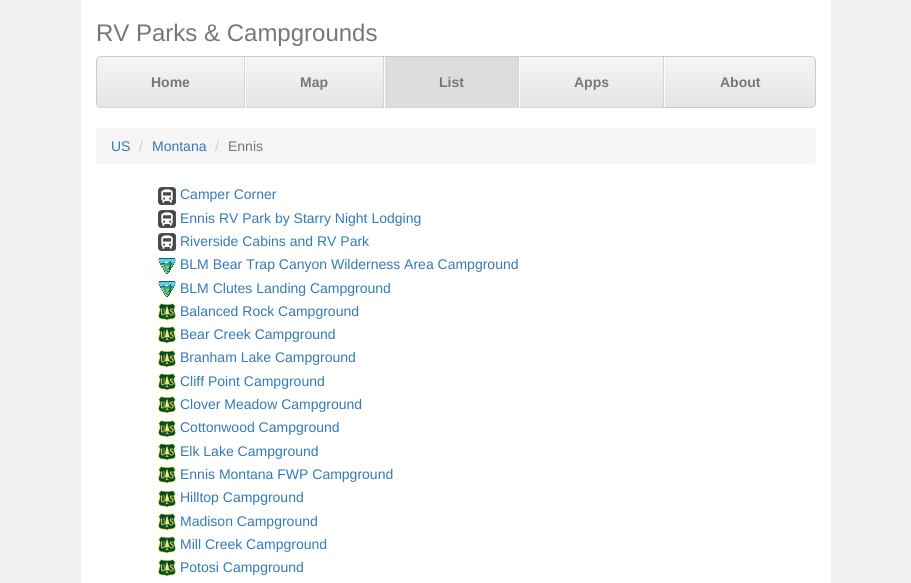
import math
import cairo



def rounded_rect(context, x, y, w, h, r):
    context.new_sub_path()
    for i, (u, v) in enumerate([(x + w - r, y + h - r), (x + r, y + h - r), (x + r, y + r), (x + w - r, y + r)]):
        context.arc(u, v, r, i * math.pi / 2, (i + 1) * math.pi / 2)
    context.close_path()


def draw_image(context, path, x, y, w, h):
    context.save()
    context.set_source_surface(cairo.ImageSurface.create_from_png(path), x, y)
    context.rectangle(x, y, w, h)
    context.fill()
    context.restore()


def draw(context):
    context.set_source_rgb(240 / 255, 240 / 255, 240 / 255)
    context.paint()
    context.set_source_rgb(1, 1, 1)
    context.rectangle(81, 0, 750, 583)
    context.fill()
    context.set_source_rgb(238 / 255, 238 / 255, 238 / 255)
    rounded_rect(context, 96.5, 56.5, 719, 51, 4.5)
    context.fill_preserve()
    context.set_source_rgb(204 / 255, 204 / 255, 204 / 255)
    context.set_line_width(1)
    context.stroke()
    context.set_source_rgb(229 / 255, 229 / 255, 229 / 255)
    context.new_path()
    context.move_to(102, 57)
    context.line_to(245, 57)
    context.line_to(245, 108)
    context.line_to(102, 108)
    context.curve_to(99, 108, 97, 106, 97, 103)
    context.line_to(97, 62)
    context.curve_to(97, 59, 99, 57, 102, 57)
    context.close_path()
    context.fill()
    context.save()
    context.new_path()
    context.move_to(102, 57)
    context.line_to(245, 57)
    context.line_to(245, 108)
    context.line_to(102, 108)
    context.curve_to(99, 108, 97, 106, 97, 103)
    context.line_to(97, 62)
    context.curve_to(97, 59, 99, 57, 102, 57)
    context.close_path()
    context.clip()
    gradient = cairo.LinearGradient(171, 57, 171, 107)
    gradient.add_color_stop_rgba(0, 245 / 255, 245 / 255, 245 / 255, 1)
    gradient.add_color_stop_rgba(1, 229 / 255, 229 / 255, 229 / 255, 1)
    context.set_source(gradient)
    context.new_path()
    context.move_to(102, 57)
    context.line_to(245, 57)
    context.line_to(245, 107)
    context.line_to(97, 107)
    context.line_to(97, 62)
    context.curve_to(97, 59, 99, 57, 102, 57)
    context.close_path()
    context.fill()
    context.restore()
    context.set_source_rgb(213 / 255, 213 / 255, 213 / 255)
    context.rectangle(244, 57, 1, 51)
    context.fill()
    context.rectangle(100, 107, 145, 1)
    context.fill()
    gradient = cairo.LinearGradient(315, 57, 315, 107)
    gradient.add_color_stop_rgba(0, 245 / 255, 245 / 255, 245 / 255, 1)
    gradient.add_color_stop_rgba(1, 229 / 255, 229 / 255, 229 / 255, 1)
    context.set_source(gradient)
    context.rectangle(246, 57, 137, 50)
    context.fill()
    context.set_source_rgb(213 / 255, 213 / 255, 213 / 255)
    context.rectangle(383, 57, 1, 51)
    context.fill()
    context.rectangle(245, 107, 139, 1)
    context.fill()
    context.set_source_rgb(1, 1, 1)
    context.rectangle(245, 57, 1, 51)
    context.fill()
    context.set_source_rgb(221 / 255, 221 / 255, 221 / 255)
    context.rectangle(385, 57, 133, 50)
    context.fill()
    context.set_source_rgb(213 / 255, 213 / 255, 213 / 255)
    context.rectangle(518, 57, 1, 51)
    context.fill()
    context.rectangle(384, 107, 135, 1)
    context.fill()
    context.set_source_rgb(1, 1, 1)
    context.rectangle(384, 57, 1, 51)
    context.fill()
    gradient = cairo.LinearGradient(592, 57, 592, 107)
    gradient.add_color_stop_rgba(0, 245 / 255, 245 / 255, 245 / 255, 1)
    gradient.add_color_stop_rgba(1, 229 / 255, 229 / 255, 229 / 255, 1)
    context.set_source(gradient)
    context.rectangle(520, 57, 143, 50)
    context.fill()
    context.set_source_rgb(213 / 255, 213 / 255, 213 / 255)
    context.rectangle(663, 57, 1, 51)
    context.fill()
    context.rectangle(519, 107, 145, 1)
    context.fill()
    context.set_source_rgb(1, 1, 1)
    context.rectangle(519, 57, 1, 51)
    context.fill()
    gradient = cairo.LinearGradient(740, 57, 740, 107)
    gradient.add_color_stop_rgba(0, 245 / 255, 245 / 255, 245 / 255, 1)
    gradient.add_color_stop_rgba(1, 229 / 255, 229 / 255, 229 / 255, 1)
    context.set_source(gradient)
    context.new_path()
    context.move_to(664, 57)
    context.line_to(810, 57)
    context.curve_to(813, 57, 815, 59, 815, 62)
    context.line_to(815, 102)
    context.curve_to(815, 105, 813, 107, 810, 107)
    context.line_to(664, 107)
    context.close_path()
    context.fill()
    context.set_source_rgb(1, 1, 1)
    context.rectangle(664, 57, 1, 50)
    context.fill()
    context.set_source_rgb(245 / 255, 245 / 255, 245 / 255)
    rounded_rect(context, 96, 128, 720, 36, 4)
    context.fill()
    draw_image(context, "images/1.png", 158, 187, 18, 18)
    draw_image(context, "images/1.png", 158, 210, 18, 18)
    draw_image(context, "images/1.png", 158, 233, 18, 18)
    draw_image(context, "images/2.png", 158, 258, 18, 16)
    draw_image(context, "images/2.png", 158, 281, 18, 16)
    draw_image(context, "images/3.png", 158, 303, 18, 18)
    draw_image(context, "images/3.png", 158, 326, 18, 18)
    draw_image(context, "images/3.png", 158, 350, 18, 18)
    draw_image(context, "images/3.png", 158, 373, 18, 18)
    draw_image(context, "images/3.png", 158, 396, 18, 18)
    draw_image(context, "images/3.png", 158, 420, 18, 18)
    draw_image(context, "images/3.png", 158, 443, 18, 18)
    draw_image(context, "images/3.png", 158, 466, 18, 18)
    draw_image(context, "images/3.png", 158, 490, 18, 18)
    draw_image(context, "images/3.png", 158, 513, 18, 18)
    draw_image(context, "images/3.png", 158, 536, 18, 18)
    draw_image(context, "images/3.png", 158, 559, 18, 18)
    context.select_font_face("Liberation Sans")
    context.set_font_size(24)
    context.set_source_rgb(119 / 255, 119 / 255, 119 / 255)
    context.move_to(96, 41)
    context.show_text("RV Parks & Campgrounds")
    context.select_font_face("Liberation Sans", cairo.FontSlant.NORMAL, cairo.FontWeight.BOLD)
    context.set_font_size(14)
    context.move_to(151, 87)
    context.show_text("Home")
    context.move_to(300, 87)
    context.show_text("Map")
    context.move_to(439, 87)
    context.show_text("List")
    context.move_to(574, 87)
    context.show_text("Apps")
    context.move_to(720, 87)
    context.show_text("About")
    context.select_font_face("Liberation Sans")
    context.set_source_rgb(51 / 255, 122 / 255, 183 / 255)
    context.move_to(111, 151)
    context.show_text("US")
    context.set_source_rgb(204 / 255, 204 / 255, 204 / 255)
    context.move_to(139, 151)
    context.show_text("/")
    context.set_source_rgb(51 / 255, 122 / 255, 183 / 255)
    context.move_to(152, 151)
    context.show_text("Montana")
    context.set_source_rgb(204 / 255, 204 / 255, 204 / 255)
    context.move_to(215, 151)
    context.show_text("/")
    context.set_source_rgb(119 / 255, 119 / 255, 119 / 255)
    context.move_to(228, 151)
    context.show_text("Ennis")
    context.set_source_rgb(51 / 255, 122 / 255, 183 / 255)
    context.move_to(180, 199)
    context.show_text("Camper Corner")
    context.move_to(180, 223)
    context.show_text("Ennis RV Park by Starry Night Lodging")
    context.move_to(180, 246)
    context.show_text("Riverside Cabins and RV Park")
    context.move_to(180, 269)
    context.show_text("BLM Bear Trap Canyon Wilderness Area Campground")
    context.move_to(180, 293)
    context.show_text("BLM Clutes Landing Campground")
    context.move_to(180, 316)
    context.show_text("Balanced Rock Campground")
    context.move_to(180, 339)
    context.show_text("Bear Creek Campground")
    context.move_to(180, 362)
    context.show_text("Branham Lake Campground")
    context.move_to(180, 386)
    context.show_text("Cliff Point Campground")
    context.move_to(180, 409)
    context.show_text("Clover Meadow Campground")
    context.move_to(180, 432)
    context.show_text("Cottonwood Campground")
    context.move_to(180, 456)
    context.show_text("Elk Lake Campground")
    context.move_to(180, 479)
    context.show_text("Ennis Montana FWP Campground")
    context.move_to(180, 502)
    context.show_text("Hilltop Campground")
    context.move_to(180, 526)
    context.show_text("Madison Campground")
    context.move_to(180, 549)
    context.show_text("Mill Creek Campground")
    context.move_to(180, 572)
    context.show_text("Potosi Campground")


surface = cairo.ImageSurface(cairo.Format.RGB24, 911, 583)
context = cairo.Context(surface)
options = cairo.FontOptions()
options.set_hint_metrics(cairo.HintMetrics.OFF)
options.set_hint_style(cairo.HintStyle.NONE)
context.set_font_options(options)
context.set_miter_limit(4)
draw(context)
surface.write_to_png("out.png")
